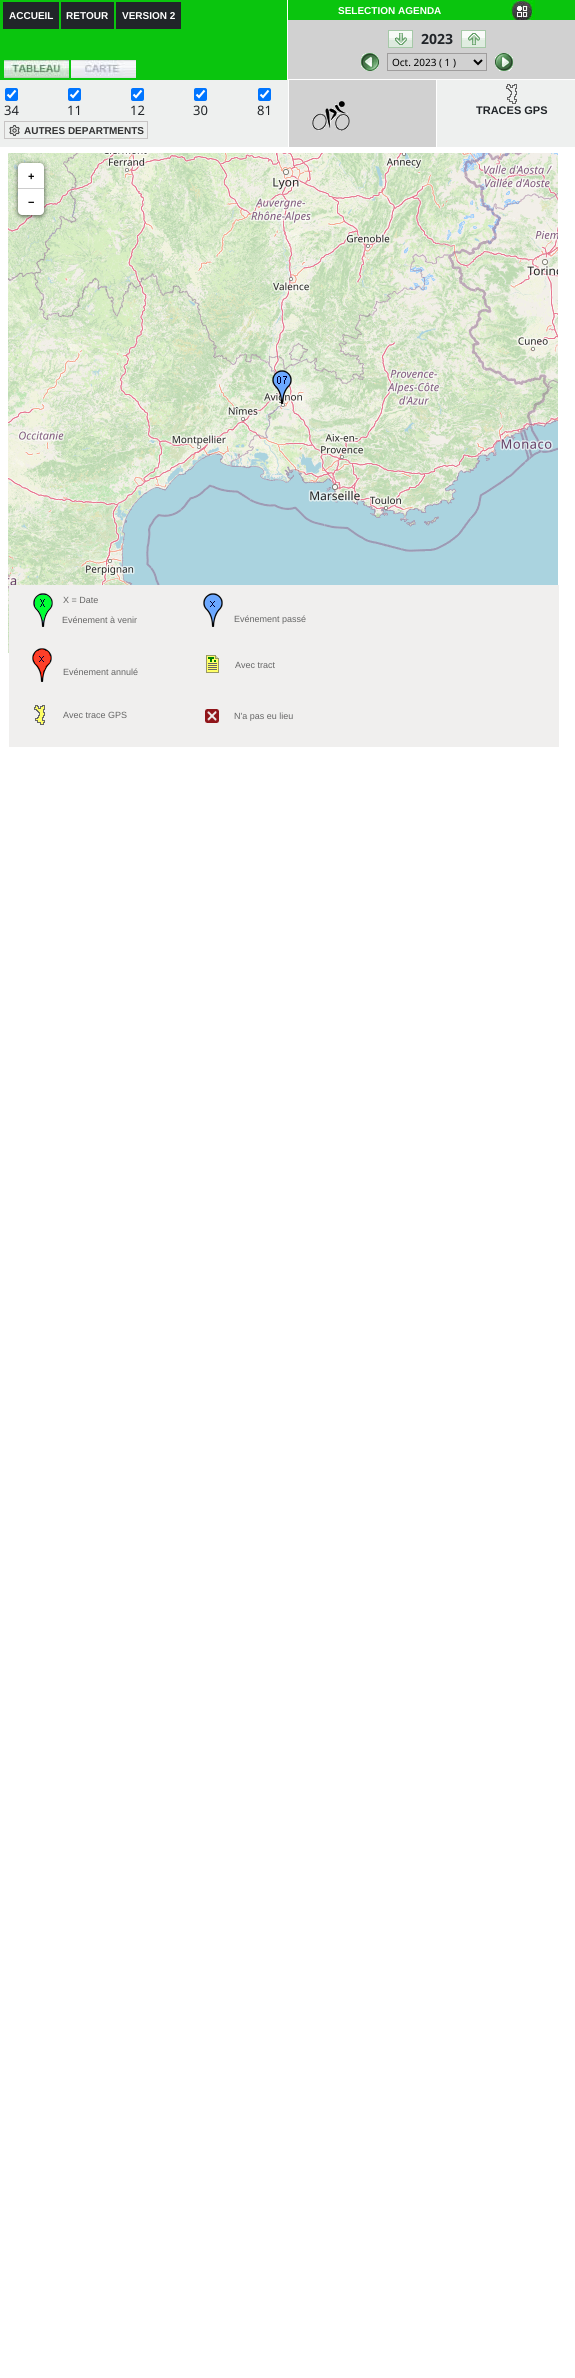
import math
import cairo



def rounded_rect(context, x, y, w, h, r):
    context.new_sub_path()
    for i, (u, v) in enumerate([(x + w - r, y + h - r), (x + r, y + h - r), (x + r, y + r), (x + w - r, y + r)]):
        context.arc(u, v, r, i * math.pi / 2, (i + 1) * math.pi / 2)
    context.close_path()


def draw_shadow(context, x, y, w, h, r, blur, alpha):
    context.push_group_with_content(cairo.Content.ALPHA)
    context.set_operator(cairo.Operator.SOURCE)
    for i in range(15, -16, -2):
        e = blur * i / 6
        if min(w, h) + 2 * e > 0:
            context.set_source_rgba(0, 0, 0, alpha * math.erfc((i - 1) / 8.5) / 2)
            rounded_rect(context, x - e, y - e, w + 2 * e, h + 2 * e, max(0, min(r + e + blur * .6, min(w, h) / 2 + e)))
            context.fill()
    context.mask(context.pop_group())


def draw_image(context, path, x, y, w, h):
    context.save()
    context.set_source_surface(cairo.ImageSurface.create_from_png(path), x, y)
    context.rectangle(x, y, w, h)
    context.fill()
    context.restore()


def draw(context):
    context.set_source_rgb(1, 1, 1)
    context.paint()
    context.set_source_rgb(10 / 255, 197 / 255, 14 / 255)
    context.rectangle(0, 0, 287, 80)
    context.fill()
    context.set_source_rgb(33 / 255, 37 / 255, 41 / 255)
    context.rectangle(3, 2, 56, 27)
    context.fill()
    context.rectangle(61, 2, 53, 27)
    context.fill()
    context.rectangle(116, 2, 65, 27)
    context.fill()
    draw_image(context, "images/1.png", 4, 60, 65, 18)
    draw_image(context, "images/2.png", 71, 60, 65, 18)
    context.set_source_rgb(209 / 255, 209 / 255, 209 / 255)
    context.rectangle(288, 20, 287, 59)
    context.fill()
    context.set_source_rgb(10 / 255, 197 / 255, 14 / 255)
    context.rectangle(288, 0, 287, 20)
    context.fill()
    draw_image(context, "images/3.png", 510, 0, 25, 20)
    draw_image(context, "images/4.png", 388, 30, 25, 18)
    draw_image(context, "images/5.png", 461, 30, 25, 18)
    draw_image(context, "images/6.png", 361, 53, 18, 18)
    context.rectangle(387.5, 53.5, 99, 17)
    context.set_source_rgb(159 / 255, 157 / 255, 157 / 255)
    context.set_line_width(1)
    context.stroke()
    context.new_path()
    context.move_to(474, 60)
    context.line_to(478, 64)
    context.line_to(482, 60)
    context.set_source_rgb(0, 0, 0)
    context.set_line_width(2)
    context.stroke()
    draw_image(context, "images/7.png", 495, 53, 18, 18)
    context.set_source_rgb(238 / 255, 240 / 255, 239 / 255)
    context.rectangle(0, 80, 288, 67)
    context.fill()
    context.set_source_rgb(0, 117 / 255, 1)
    rounded_rect(context, 5, 88, 13, 13, 2)
    context.fill()
    context.new_path()
    context.move_to(7.5, 94.5)
    context.line_to(10, 97)
    context.line_to(15.5, 90.5)
    context.set_source_rgb(1, 1, 1)
    context.set_line_width(2.1)
    context.stroke()
    context.set_source_rgb(0, 117 / 255, 1)
    rounded_rect(context, 68, 88, 13, 13, 2)
    context.fill()
    context.new_path()
    context.move_to(70.5, 94.5)
    context.line_to(73, 97)
    context.line_to(78.5, 90.5)
    context.set_source_rgb(1, 1, 1)
    context.stroke()
    context.set_source_rgb(0, 117 / 255, 1)
    rounded_rect(context, 131, 88, 13, 13, 2)
    context.fill()
    context.new_path()
    context.move_to(133.5, 94.5)
    context.line_to(136, 97)
    context.line_to(141.5, 90.5)
    context.set_source_rgb(1, 1, 1)
    context.stroke()
    context.set_source_rgb(0, 117 / 255, 1)
    rounded_rect(context, 194, 88, 13, 13, 2)
    context.fill()
    context.new_path()
    context.move_to(196.5, 94.5)
    context.line_to(199, 97)
    context.line_to(204.5, 90.5)
    context.set_source_rgb(1, 1, 1)
    context.stroke()
    context.set_source_rgb(0, 117 / 255, 1)
    rounded_rect(context, 258, 88, 13, 13, 2)
    context.fill()
    context.new_path()
    context.move_to(260.5, 94.5)
    context.line_to(263, 97)
    context.line_to(268.5, 90.5)
    context.set_source_rgb(1, 1, 1)
    context.stroke()
    context.rectangle(4.5, 121.5, 143, 17)
    context.set_source_rgb(199 / 255, 196 / 255, 196 / 255)
    context.set_line_width(1)
    context.stroke()
    draw_image(context, "images/8.png", 9, 125, 11, 11)
    context.set_source_rgb(209 / 255, 209 / 255, 209 / 255)
    context.rectangle(289, 80, 147, 67)
    context.fill()
    draw_image(context, "images/9.png", 312, 100, 38, 31)
    context.set_source_rgb(238 / 255, 240 / 255, 239 / 255)
    context.rectangle(437, 80, 138, 67)
    context.fill()
    draw_image(context, "images/10.png", 506, 84, 11, 20)
    draw_image(context, "images/11.png", 8, 153, 94, 106)
    draw_image(context, "images/12.png", 102, 153, 256, 106)
    draw_image(context, "images/13.png", 358, 153, 200, 106)
    draw_image(context, "images/14.png", 8, 259, 94, 256)
    draw_image(context, "images/15.png", 102, 259, 256, 256)
    draw_image(context, "images/16.png", 358, 259, 200, 256)
    draw_image(context, "images/17.png", 8, 515, 94, 138)
    draw_image(context, "images/18.png", 102, 515, 256, 70)
    draw_image(context, "images/19.png", 358, 515, 200, 70)
    draw_image(context, "images/20.png", 272, 370, 20, 34)
    context.set_source_rgb(0, 0, 0)
    draw_shadow(context, 18, 164, 26, 52, 4, 2.5, 0.65)
    context.set_source_rgb(1, 1, 1)
    context.new_path()
    context.move_to(22, 163)
    context.line_to(40, 163)
    context.curve_to(42, 163, 44, 165, 44, 167)
    context.line_to(44, 189)
    context.line_to(18, 189)
    context.line_to(18, 167)
    context.curve_to(18, 165, 20, 163, 22, 163)
    context.close_path()
    context.fill()
    context.set_source_rgb(204 / 255, 204 / 255, 204 / 255)
    context.rectangle(18, 188, 26, 1)
    context.fill()
    context.set_source_rgb(1, 1, 1)
    context.new_path()
    context.move_to(18, 189)
    context.line_to(44, 189)
    context.line_to(44, 211)
    context.curve_to(44, 213, 42, 215, 40, 215)
    context.line_to(22, 215)
    context.curve_to(20, 215, 18, 213, 18, 211)
    context.close_path()
    context.fill()
    context.set_source_rgb(240 / 255, 239 / 255, 238 / 255)
    context.rectangle(9, 585, 550, 162)
    context.fill()
    draw_image(context, "images/21.png", 33, 593, 20, 34)
    draw_image(context, "images/22.png", 203, 593, 20, 34)
    draw_image(context, "images/23.png", 32, 648, 20, 34)
    draw_image(context, "images/24.png", 206, 655, 13, 18)
    draw_image(context, "images/25.png", 34, 705, 11, 20)
    draw_image(context, "images/26.png", 205, 709, 14, 14)
    context.select_font_face("Liberation Sans", cairo.FontSlant.NORMAL, cairo.FontWeight.BOLD)
    context.set_font_size(10)
    context.set_source_rgb(1, 1, 1)
    context.move_to(9, 19)
    context.show_text("ACCUEIL")
    context.move_to(66, 19)
    context.show_text("RETOUR")
    context.move_to(122, 19)
    context.show_text("VERSION 2")
    context.move_to(338, 14)
    context.show_text("SELECTION AGENDA")
    context.select_font_face("Noto Sans", cairo.FontSlant.NORMAL, cairo.FontWeight.BOLD)
    context.set_font_size(14)
    context.set_source_rgb(33 / 255, 37 / 255, 41 / 255)
    context.move_to(421, 44)
    context.show_text("2023")
    context.select_font_face("Noto Sans")
    context.set_font_size(10)
    context.set_source_rgb(0, 0, 0)
    context.move_to(392, 66)
    context.show_text("Oct. 2023 ( 1 )")
    context.set_font_size(13)
    context.set_source_rgb(33 / 255, 37 / 255, 41 / 255)
    context.move_to(4, 115)
    context.show_text("34")
    context.move_to(67, 115)
    context.show_text("11")
    context.move_to(130, 115)
    context.show_text("12")
    context.move_to(193, 115)
    context.show_text("30")
    context.move_to(257, 115)
    context.show_text("81")
    context.select_font_face("Liberation Sans", cairo.FontSlant.NORMAL, cairo.FontWeight.BOLD)
    context.set_font_size(10)
    context.set_source_rgb(51 / 255, 51 / 255, 51 / 255)
    context.move_to(24, 134)
    context.show_text("AUTRES DEPARTMENTS")
    context.set_font_size(11)
    context.set_source_rgb(33 / 255, 37 / 255, 41 / 255)
    context.move_to(476, 114)
    context.show_text("TRACES GPS")
    context.set_source_rgb(0, 0, 0)
    context.move_to(28, 180)
    context.show_text("+")
    context.move_to(28, 206)
    context.show_text("−")
    context.select_font_face("Liberation Sans")
    context.set_font_size(9)
    context.set_source_rgb(102 / 255, 102 / 255, 102 / 255)
    context.move_to(63, 603)
    context.show_text("X = Date")
    context.move_to(62, 623)
    context.show_text("Evénement à venir")
    context.move_to(234, 622)
    context.show_text("Evénement passé")
    context.move_to(235, 668)
    context.show_text("Avec tract")
    context.move_to(63, 675)
    context.show_text("Evénement annulé")
    context.move_to(63, 718)
    context.show_text("Avec trace GPS")
    context.move_to(234, 719)
    context.show_text("N'a pas eu lieu")


surface = cairo.ImageSurface(cairo.Format.RGB24, 575, 2378)
context = cairo.Context(surface)
options = cairo.FontOptions()
options.set_hint_metrics(cairo.HintMetrics.OFF)
options.set_hint_style(cairo.HintStyle.NONE)
context.set_font_options(options)
context.set_miter_limit(4)
draw(context)
surface.write_to_png("out.png")
